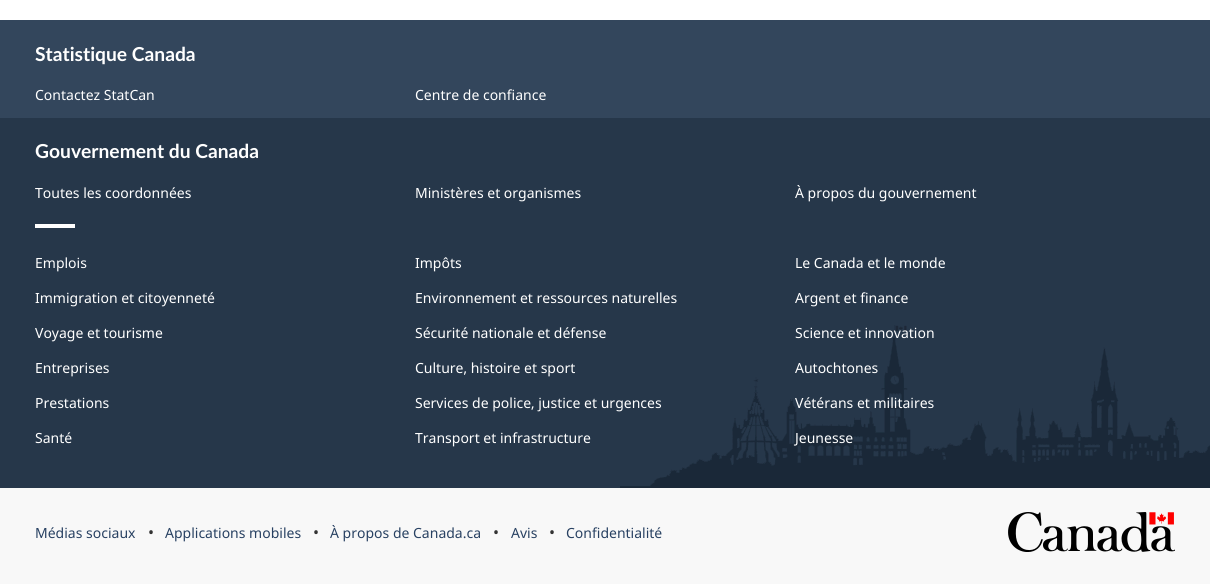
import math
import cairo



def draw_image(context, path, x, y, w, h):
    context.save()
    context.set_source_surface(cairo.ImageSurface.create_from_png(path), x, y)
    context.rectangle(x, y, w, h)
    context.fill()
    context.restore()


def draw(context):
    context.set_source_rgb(1, 1, 1)
    context.paint()
    context.set_source_rgb(51 / 255, 70 / 255, 92 / 255)
    context.rectangle(0, 20, 1210, 98)
    context.fill()
    context.set_source_rgb(38 / 255, 55 / 255, 74 / 255)
    context.rectangle(0, 118, 1210, 370)
    context.fill()
    draw_image(context, "images/1.png", 620, 325, 590, 163)
    context.set_source_rgb(1, 1, 1)
    context.rectangle(35, 224, 40, 4)
    context.fill()
    context.set_source_rgb(248 / 255, 248 / 255, 248 / 255)
    context.rectangle(0, 488, 1210, 96)
    context.fill()
    draw_image(context, "images/2.png", 1008, 512, 167, 40)
    context.select_font_face("Lato", cairo.FontSlant.NORMAL, cairo.FontWeight.BOLD)
    context.set_font_size(19.25)
    context.set_source_rgb(1, 1, 1)
    context.move_to(35, 61)
    context.show_text("Statistique Canada")
    context.select_font_face("Noto Sans")
    context.set_font_size(14)
    context.move_to(35, 100)
    context.show_text("Contactez StatCan")
    context.move_to(415, 100)
    context.show_text("Centre de confiance")
    context.select_font_face("Lato", cairo.FontSlant.NORMAL, cairo.FontWeight.BOLD)
    context.set_font_size(19.25)
    context.move_to(35, 158)
    context.show_text("Gouvernement du Canada")
    context.select_font_face("Noto Sans")
    context.set_font_size(14)
    context.move_to(35, 198)
    context.show_text("Toutes les coordonnées")
    context.move_to(415, 198)
    context.show_text("Ministères et organismes")
    context.move_to(795, 198)
    context.show_text("À propos du gouvernement")
    context.move_to(35, 268)
    context.show_text("Emplois")
    context.move_to(415, 268)
    context.show_text("Impôts")
    context.move_to(795, 268)
    context.show_text("Le Canada et le monde")
    context.move_to(35, 303)
    context.show_text("Immigration et citoyenneté")
    context.move_to(415, 303)
    context.show_text("Environnement et ressources naturelles")
    context.move_to(795, 303)
    context.show_text("Argent et finance")
    context.move_to(35, 338)
    context.show_text("Voyage et tourisme")
    context.move_to(415, 338)
    context.show_text("Sécurité nationale et défense")
    context.move_to(795, 338)
    context.show_text("Science et innovation")
    context.move_to(35, 373)
    context.show_text("Entreprises")
    context.move_to(415, 373)
    context.show_text("Culture, histoire et sport")
    context.move_to(795, 373)
    context.show_text("Autochtones")
    context.move_to(35, 408)
    context.show_text("Prestations")
    context.move_to(415, 408)
    context.show_text("Services de police, justice et urgences")
    context.move_to(795, 408)
    context.show_text("Vétérans et militaires")
    context.move_to(35, 443)
    context.show_text("Santé")
    context.move_to(415, 443)
    context.show_text("Transport et infrastructure")
    context.move_to(795, 443)
    context.show_text("Jeunesse")
    context.set_source_rgb(40 / 255, 65 / 255, 98 / 255)
    context.move_to(35, 538)
    context.show_text("Médias sociaux")
    context.set_font_size(16)
    context.set_source_rgb(51 / 255, 51 / 255, 51 / 255)
    context.move_to(148, 538)
    context.show_text("•")
    context.set_font_size(14)
    context.set_source_rgb(40 / 255, 65 / 255, 98 / 255)
    context.move_to(165, 538)
    context.show_text("Applications mobiles")
    context.set_font_size(16)
    context.set_source_rgb(51 / 255, 51 / 255, 51 / 255)
    context.move_to(313, 538)
    context.show_text("•")
    context.set_font_size(14)
    context.set_source_rgb(40 / 255, 65 / 255, 98 / 255)
    context.move_to(330, 538)
    context.show_text("À propos de Canada.ca")
    context.set_font_size(16)
    context.set_source_rgb(51 / 255, 51 / 255, 51 / 255)
    context.move_to(493, 538)
    context.show_text("•")
    context.set_font_size(14)
    context.set_source_rgb(40 / 255, 65 / 255, 98 / 255)
    context.move_to(511, 538)
    context.show_text("Avis")
    context.set_font_size(16)
    context.set_source_rgb(51 / 255, 51 / 255, 51 / 255)
    context.move_to(549, 538)
    context.show_text("•")
    context.set_font_size(14)
    context.set_source_rgb(40 / 255, 65 / 255, 98 / 255)
    context.move_to(566, 538)
    context.show_text("Confidentialité")


surface = cairo.ImageSurface(cairo.Format.RGB24, 1210, 584)
context = cairo.Context(surface)
options = cairo.FontOptions()
options.set_hint_metrics(cairo.HintMetrics.OFF)
options.set_hint_style(cairo.HintStyle.NONE)
context.set_font_options(options)
context.set_miter_limit(4)
draw(context)
surface.write_to_png("out.png")
